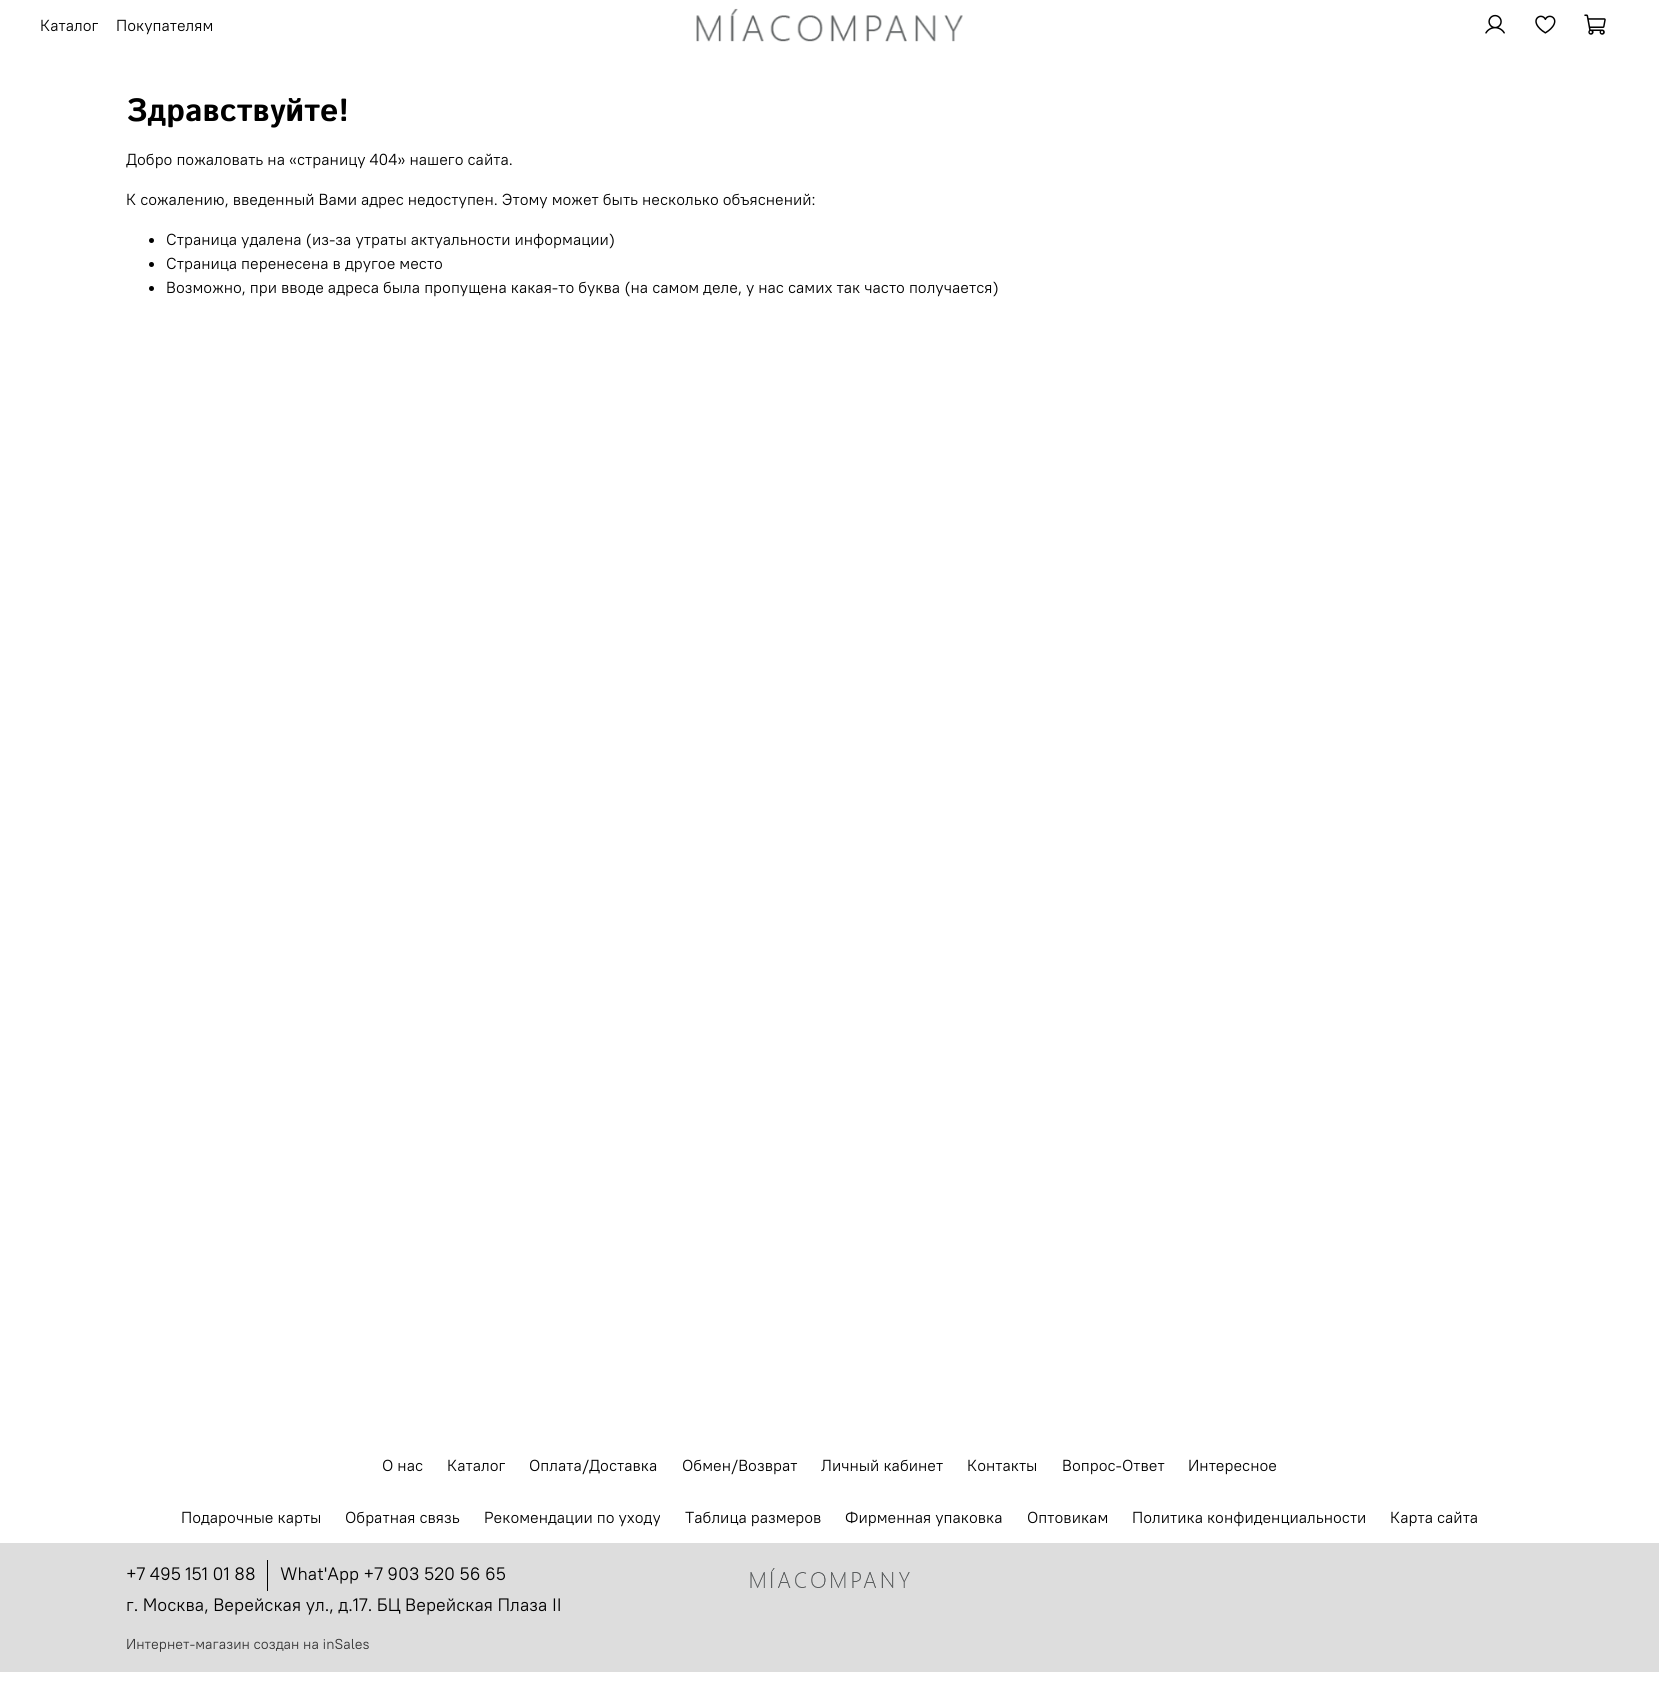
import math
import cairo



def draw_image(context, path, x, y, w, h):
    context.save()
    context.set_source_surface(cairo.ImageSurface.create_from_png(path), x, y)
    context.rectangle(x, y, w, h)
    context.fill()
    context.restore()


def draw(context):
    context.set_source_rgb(1, 1, 1)
    context.paint()
    draw_image(context, "images/1.png", 696, 8, 267, 34)
    draw_image(context, "images/2.png", 1485, 14, 20, 20)
    draw_image(context, "images/3.png", 1535, 15, 21, 19)
    draw_image(context, "images/4.png", 1584, 14, 22, 21)
    context.set_source_rgb(0, 0, 0)
    context.arc(151.5, 240.5, 2.5, 0, 2 * math.pi)
    context.fill()
    context.arc(151.5, 264.5, 2.5, 0, 2 * math.pi)
    context.fill()
    context.arc(151.5, 288.5, 2.5, 0, 2 * math.pi)
    context.fill()
    context.set_source_rgb(221 / 255, 221 / 255, 221 / 255)
    context.rectangle(0, 1543, 1659, 129)
    context.fill()
    context.set_source_rgb(0, 0, 0)
    context.rectangle(267, 1560, 1, 31)
    context.fill()
    draw_image(context, "images/5.png", 750, 1568, 160, 20)
    context.select_font_face("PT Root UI")
    context.set_font_size(16)
    context.move_to(40, 31)
    context.show_text("Каталог")
    context.move_to(116, 31)
    context.show_text("Покупателям")
    context.select_font_face("Istok Web", cairo.FontSlant.NORMAL, cairo.FontWeight.BOLD)
    context.set_font_size(32)
    context.move_to(126, 121)
    context.show_text("Здравствуйте!")
    context.select_font_face("PT Root UI")
    context.set_font_size(16)
    context.move_to(126, 165)
    context.show_text("Добро пожаловать на «страницу 404» нашего сайта.")
    context.move_to(126, 205)
    context.show_text("К сожалению, введенный Вами адрес недоступен. Этому может быть несколько объяснений:")
    context.move_to(166, 245)
    context.show_text("Страница удалена (из-за утраты актуальности информации)")
    context.move_to(166, 269)
    context.show_text("Страница перенесена в другое место")
    context.move_to(166, 293)
    context.show_text("Возможно, при вводе адреса была пропущена какая-то буква (на самом деле, у нас самих так часто получается)")
    context.move_to(382, 1471)
    context.show_text("О нас")
    context.move_to(447, 1471)
    context.show_text("Каталог")
    context.move_to(529, 1471)
    context.show_text("Оплата/Доставка")
    context.move_to(682, 1471)
    context.show_text("Обмен/Возврат")
    context.move_to(821, 1471)
    context.show_text("Личный кабинет")
    context.move_to(967, 1471)
    context.show_text("Контакты")
    context.move_to(1062, 1471)
    context.show_text("Вопрос-Ответ")
    context.move_to(1188, 1471)
    context.show_text("Интересное")
    context.move_to(181, 1523)
    context.show_text("Подарочные карты")
    context.move_to(345, 1523)
    context.show_text("Обратная связь")
    context.move_to(484, 1523)
    context.show_text("Рекомендации по уходу")
    context.move_to(685, 1523)
    context.show_text("Таблица размеров")
    context.move_to(845, 1523)
    context.show_text("Фирменная упаковка")
    context.move_to(1027, 1523)
    context.show_text("Оптовикам")
    context.move_to(1132, 1523)
    context.show_text("Политика конфиденциальности")
    context.move_to(1390, 1523)
    context.show_text("Карта сайта")
    context.set_font_size(18)
    context.move_to(126, 1580)
    context.show_text("+7 495 151 01 88")
    context.move_to(280, 1580)
    context.show_text("What'App +7 903 520 56 65")
    context.move_to(126, 1611)
    context.show_text("г. Москва, Верейская ул., д.17. БЦ Верейская Плаза II")
    context.set_font_size(14.4)
    context.set_source_rgb(51 / 255, 51 / 255, 51 / 255)
    context.move_to(126, 1649)
    context.show_text("Интернет-магазин создан на inSales")


surface = cairo.ImageSurface(cairo.Format.RGB24, 1659, 1683)
context = cairo.Context(surface)
options = cairo.FontOptions()
options.set_hint_metrics(cairo.HintMetrics.OFF)
options.set_hint_style(cairo.HintStyle.NONE)
context.set_font_options(options)
context.set_miter_limit(4)
draw(context)
surface.write_to_png("out.png")
